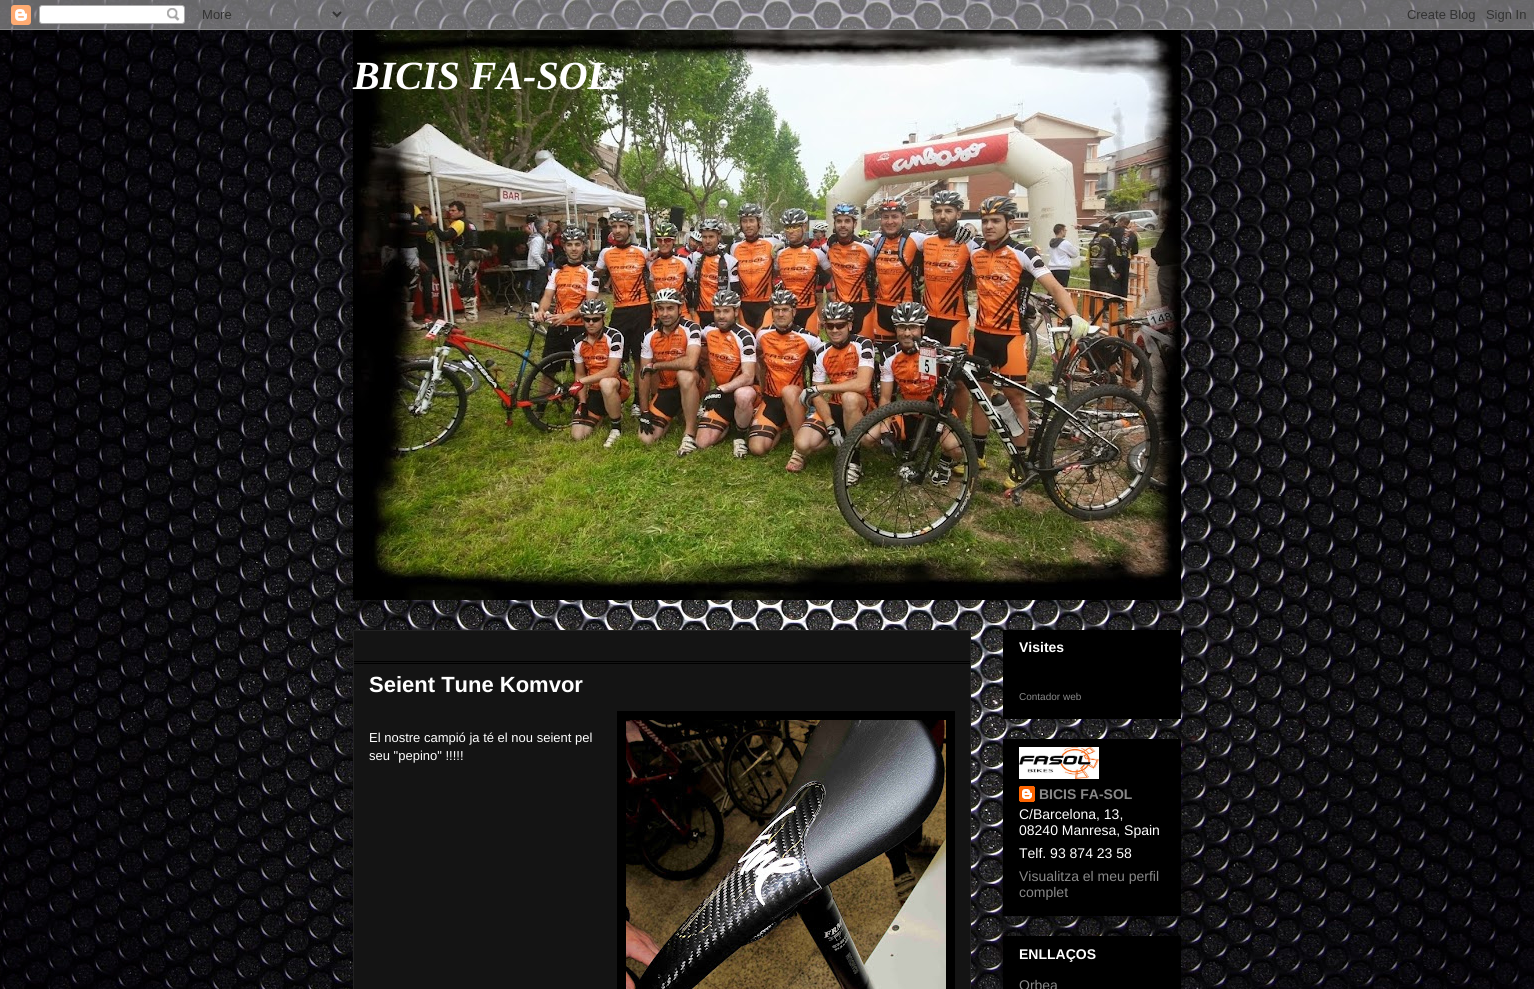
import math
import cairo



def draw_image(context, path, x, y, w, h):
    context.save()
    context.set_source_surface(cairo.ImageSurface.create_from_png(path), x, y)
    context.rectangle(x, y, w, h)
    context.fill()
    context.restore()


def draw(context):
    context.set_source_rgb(1, 1, 1)
    context.paint()
    draw_image(context, "images/1.png", 0, 0, 1534, 989)
    draw_image(context, "images/2.png", 0, 0, 1534, 30)
    draw_image(context, "images/3.png", 353, 30, 828, 570)
    context.set_source_rgb(20 / 255, 20 / 255, 20 / 255)
    context.rectangle(353.5, 630.5, 617, 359)
    context.fill_preserve()
    context.set_source_rgb(34 / 255, 34 / 255, 34 / 255)
    context.set_line_width(1)
    context.stroke()
    context.set_source_rgb(0, 0, 0)
    context.rectangle(354, 661, 616, 1)
    context.fill()
    context.rectangle(354, 663, 616, 1)
    context.fill()
    context.rectangle(617, 711, 338, 278)
    context.fill()
    draw_image(context, "images/4.png", 626, 720, 320, 269)
    context.rectangle(1003, 630, 178, 89)
    context.fill()
    context.rectangle(1003, 739, 178, 177)
    context.fill()
    draw_image(context, "images/5.png", 1019, 747, 80, 32)
    draw_image(context, "images/6.png", 1019, 786, 16, 16)
    context.rectangle(1003, 936, 178, 53)
    context.fill()
    context.select_font_face("Liberation Serif", cairo.FontSlant.ITALIC, cairo.FontWeight.BOLD)
    context.set_font_size(40)
    context.set_source_rgb(1, 1, 1)
    context.move_to(353, 89)
    context.show_text("BICIS FA-SOL")
    context.select_font_face("Liberation Sans", cairo.FontSlant.NORMAL, cairo.FontWeight.BOLD)
    context.set_font_size(22)
    context.move_to(369, 692)
    context.show_text("Seient Tune Komvor")
    context.select_font_face("Liberation Sans")
    context.set_font_size(13)
    context.move_to(369, 742)
    context.show_text("El nostre campió ja té el nou seient pel")
    context.move_to(369, 760)
    context.show_text("seu \"pepino\" !!!!!")
    context.select_font_face("Liberation Sans", cairo.FontSlant.NORMAL, cairo.FontWeight.BOLD)
    context.set_font_size(14)
    context.move_to(1019, 652)
    context.show_text("Visites")
    context.select_font_face("Liberation Sans")
    context.set_font_size(10)
    context.set_source_rgb(136 / 255, 136 / 255, 136 / 255)
    context.move_to(1019, 700)
    context.show_text("Contador web")
    context.select_font_face("Liberation Sans", cairo.FontSlant.NORMAL, cairo.FontWeight.BOLD)
    context.set_font_size(14)
    context.move_to(1039, 799)
    context.show_text("BICIS FA-SOL")
    context.select_font_face("Liberation Sans")
    context.set_source_rgb(1, 1, 1)
    context.move_to(1019, 819)
    context.show_text("C/Barcelona, 13,")
    context.move_to(1019, 835)
    context.show_text("08240 Manresa, Spain")
    context.move_to(1019, 858)
    context.show_text("Telf. 93 874 23 58")
    context.set_source_rgb(136 / 255, 136 / 255, 136 / 255)
    context.move_to(1019, 881)
    context.show_text("Visualitza el meu perfil")
    context.move_to(1019, 897)
    context.show_text("complet")
    context.select_font_face("Liberation Sans", cairo.FontSlant.NORMAL, cairo.FontWeight.BOLD)
    context.set_source_rgb(1, 1, 1)
    context.move_to(1019, 959)
    context.show_text("ENLLAÇOS")
    context.select_font_face("Liberation Sans")
    context.set_source_rgb(136 / 255, 136 / 255, 136 / 255)
    context.move_to(1019, 990)
    context.show_text("Orbea")


surface = cairo.ImageSurface(cairo.Format.RGB24, 1534, 989)
context = cairo.Context(surface)
options = cairo.FontOptions()
options.set_hint_metrics(cairo.HintMetrics.OFF)
options.set_hint_style(cairo.HintStyle.NONE)
context.set_font_options(options)
context.set_miter_limit(4)
draw(context)
surface.write_to_png("out.png")
